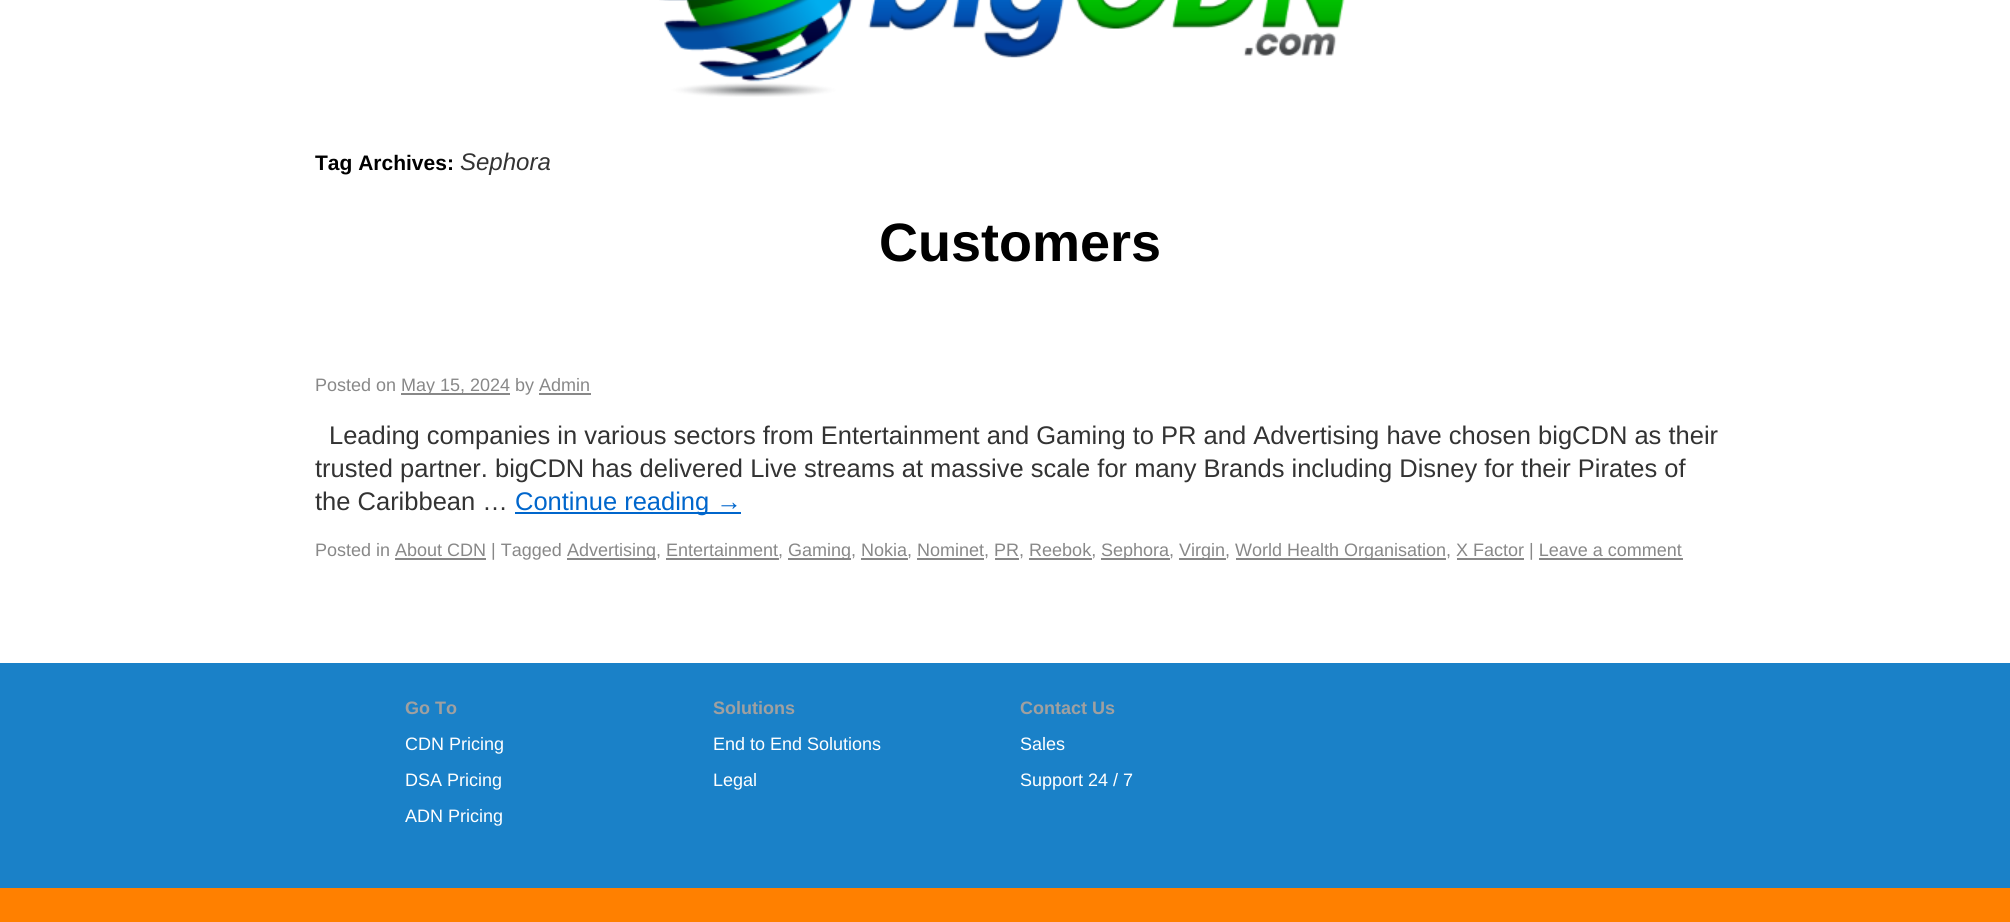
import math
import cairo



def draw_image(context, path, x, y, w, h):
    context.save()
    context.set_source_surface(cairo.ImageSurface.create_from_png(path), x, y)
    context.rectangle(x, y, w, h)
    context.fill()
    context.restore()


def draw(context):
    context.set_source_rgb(1, 1, 1)
    context.paint()
    draw_image(context, "images/1.png", 659, 0, 686, 97)
    context.set_source_rgb(136 / 255, 136 / 255, 136 / 255)
    context.rectangle(401, 393, 109, 2)
    context.fill()
    context.rectangle(539, 393, 52, 2)
    context.fill()
    context.set_source_rgb(0, 102 / 255, 204 / 255)
    context.rectangle(515, 512, 226, 2)
    context.fill()
    context.set_source_rgb(136 / 255, 136 / 255, 136 / 255)
    context.rectangle(395, 558, 91, 2)
    context.fill()
    context.rectangle(567, 558, 89, 2)
    context.fill()
    context.rectangle(666, 558, 113, 2)
    context.fill()
    context.rectangle(788, 558, 63, 2)
    context.fill()
    context.rectangle(861, 558, 47, 2)
    context.fill()
    context.rectangle(917, 558, 67, 2)
    context.fill()
    context.rectangle(995, 558, 24, 2)
    context.fill()
    context.rectangle(1029, 558, 63, 2)
    context.fill()
    context.rectangle(1101, 558, 69, 2)
    context.fill()
    context.rectangle(1179, 558, 47, 2)
    context.fill()
    context.rectangle(1236, 558, 210, 2)
    context.fill()
    context.rectangle(1457, 558, 67, 2)
    context.fill()
    context.rectangle(1539, 558, 144, 2)
    context.fill()
    context.set_source_rgb(26 / 255, 129 / 255, 200 / 255)
    context.rectangle(0, 663, 2010, 225)
    context.fill()
    context.set_source_rgb(1, 128 / 255, 0)
    context.rectangle(0, 888, 2010, 34)
    context.fill()
    context.select_font_face("Liberation Sans", cairo.FontSlant.NORMAL, cairo.FontWeight.BOLD)
    context.set_font_size(21)
    context.set_source_rgb(0, 0, 0)
    context.move_to(315, 170)
    context.show_text("Tag Archives:")
    context.select_font_face("Liberation Sans", cairo.FontSlant.ITALIC)
    context.set_font_size(24)
    context.set_source_rgb(51 / 255, 51 / 255, 51 / 255)
    context.move_to(460, 170)
    context.show_text("Sephora")
    context.select_font_face("Liberation Sans", cairo.FontSlant.NORMAL, cairo.FontWeight.BOLD)
    context.set_font_size(54)
    context.set_source_rgb(0, 0, 0)
    context.move_to(879, 261)
    context.show_text("Customers")
    context.select_font_face("Liberation Sans")
    context.set_font_size(18)
    context.set_source_rgb(136 / 255, 136 / 255, 136 / 255)
    context.move_to(315, 391)
    context.show_text("Posted on")
    context.move_to(401, 391)
    context.show_text("May 15, 2024 by Admin")
    context.set_font_size(25.5)
    context.set_source_rgb(51 / 255, 51 / 255, 51 / 255)
    context.move_to(329, 444)
    context.show_text("Leading companies in various sectors from Entertainment and Gaming to PR and Advertising have chosen bigCDN as their")
    context.move_to(315, 477)
    context.show_text("trusted partner. bigCDN has delivered Live streams at massive scale for many Brands including Disney for their Pirates of")
    context.move_to(315, 510)
    context.show_text("the Caribbean …")
    context.set_source_rgb(0, 102 / 255, 204 / 255)
    context.move_to(515, 510)
    context.show_text("Continue reading →")
    context.set_font_size(18)
    context.set_source_rgb(136 / 255, 136 / 255, 136 / 255)
    context.move_to(315, 556)
    context.show_text("Posted in About CDN | Tagged")
    context.move_to(567, 556)
    context.show_text("Advertising, Entertainment,")
    context.move_to(788, 556)
    context.show_text("Gaming, Nokia, Nominet, PR, Reebok,")
    context.move_to(1101, 556)
    context.show_text("Sephora,")
    context.move_to(1179, 556)
    context.show_text("Virgin,")
    context.move_to(1235, 556)
    context.show_text("World Health Organisation, X Factor | Leave a comment")
    context.select_font_face("Liberation Sans", cairo.FontSlant.NORMAL, cairo.FontWeight.BOLD)
    context.set_source_rgb(160 / 255, 160 / 255, 160 / 255)
    context.move_to(405, 714)
    context.show_text("Go To")
    context.select_font_face("Liberation Sans")
    context.set_source_rgb(1, 1, 1)
    context.move_to(405, 750)
    context.show_text("CDN Pricing")
    context.move_to(405, 786)
    context.show_text("DSA Pricing")
    context.move_to(405, 822)
    context.show_text("ADN Pricing")
    context.select_font_face("Liberation Sans", cairo.FontSlant.NORMAL, cairo.FontWeight.BOLD)
    context.set_source_rgb(160 / 255, 160 / 255, 160 / 255)
    context.move_to(713, 714)
    context.show_text("Solutions")
    context.select_font_face("Liberation Sans")
    context.set_source_rgb(1, 1, 1)
    context.move_to(713, 750)
    context.show_text("End to End Solutions")
    context.move_to(713, 786)
    context.show_text("Legal")
    context.select_font_face("Liberation Sans", cairo.FontSlant.NORMAL, cairo.FontWeight.BOLD)
    context.set_source_rgb(160 / 255, 160 / 255, 160 / 255)
    context.move_to(1020, 714)
    context.show_text("Contact Us")
    context.select_font_face("Liberation Sans")
    context.set_source_rgb(1, 1, 1)
    context.move_to(1020, 750)
    context.show_text("Sales")
    context.move_to(1020, 786)
    context.show_text("Support 24 / 7")


surface = cairo.ImageSurface(cairo.Format.RGB24, 2010, 922)
context = cairo.Context(surface)
options = cairo.FontOptions()
options.set_hint_metrics(cairo.HintMetrics.OFF)
options.set_hint_style(cairo.HintStyle.NONE)
context.set_font_options(options)
context.set_miter_limit(4)
draw(context)
surface.write_to_png("out.png")
